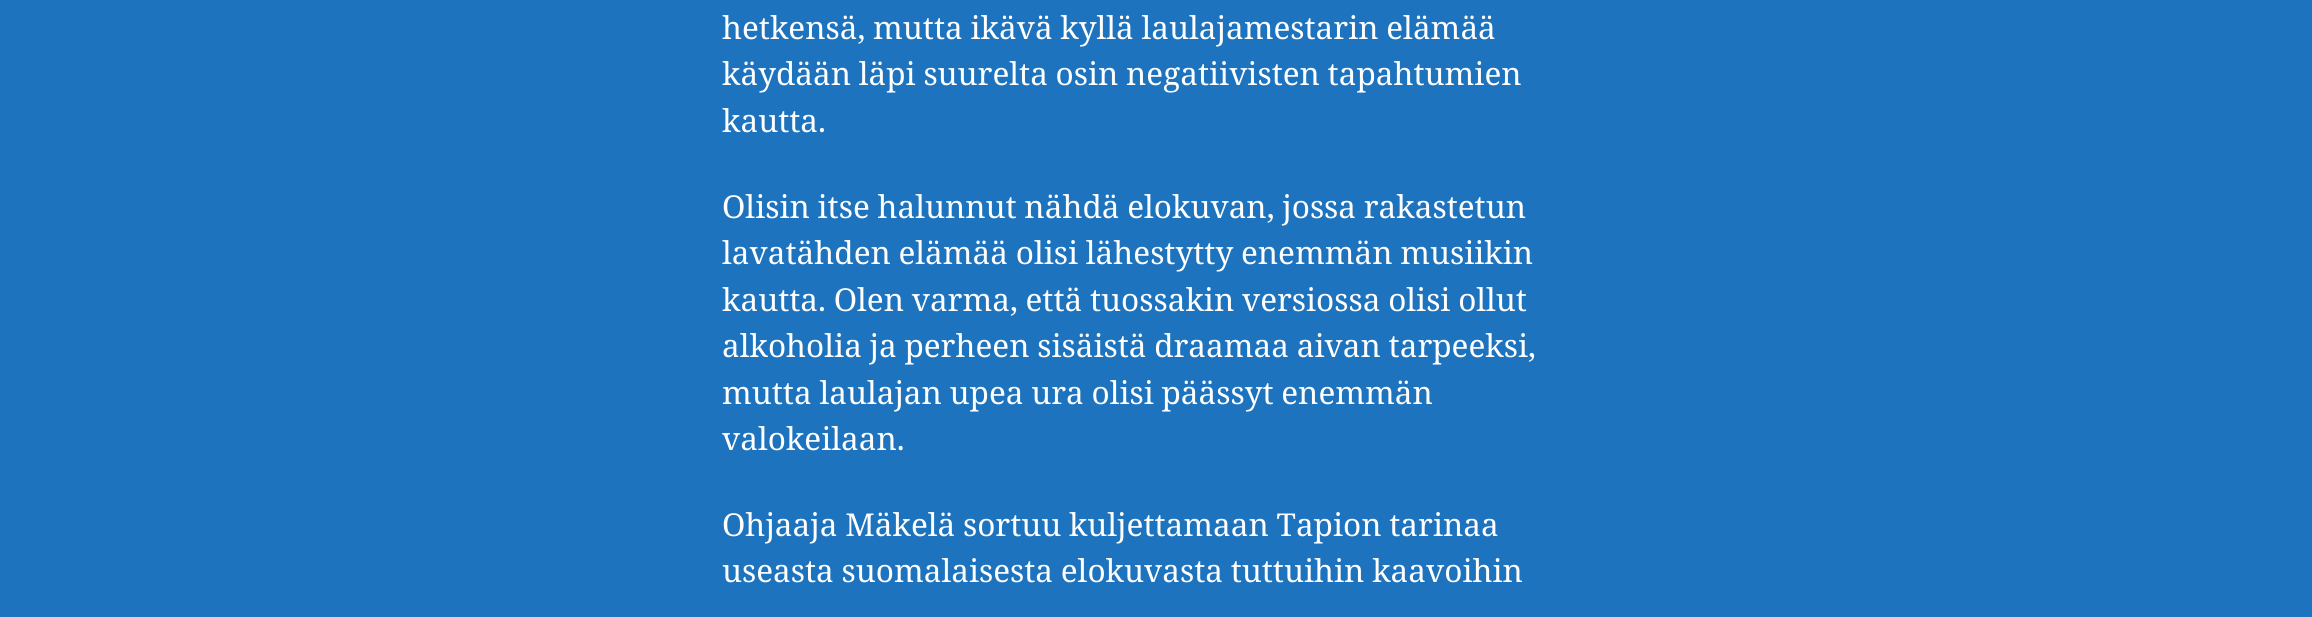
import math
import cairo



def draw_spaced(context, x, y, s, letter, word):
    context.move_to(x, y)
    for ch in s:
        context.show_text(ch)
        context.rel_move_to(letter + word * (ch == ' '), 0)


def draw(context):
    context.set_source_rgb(30 / 255, 115 / 255, 190 / 255)
    context.paint()
    context.select_font_face("Noto Serif")
    context.set_font_size(31.5)
    context.set_source_rgb(1, 1, 1)
    draw_spaced(context, 722, 39, "hetkensä, mutta ikävä kyllä laulajamestarin elämää", 0, -0.5)
    draw_spaced(context, 722, 85, "käydään läpi suurelta osin negatiivisten tapahtumien", 0, -0.5)
    context.move_to(722, 132)
    context.show_text("kautta.")
    draw_spaced(context, 722, 218, "Olisin itse halunnut nähdä elokuvan, jossa rakastetun", 0, -0.5)
    draw_spaced(context, 722, 264, "lavatähden elämää olisi lähestytty enemmän musiikin", 0, -0.5)
    draw_spaced(context, 722, 311, "kautta. Olen varma, että tuossakin versiossa olisi ollut", 0, -0.5)
    draw_spaced(context, 722, 357, "alkoholia ja perheen sisäistä draamaa aivan tarpeeksi,", 0, -0.5)
    draw_spaced(context, 722, 404, "mutta laulajan upea ura olisi päässyt enemmän", 0, -0.5)
    context.move_to(722, 450)
    context.show_text("valokeilaan.")
    draw_spaced(context, 722, 536, "Ohjaaja Mäkelä sortuu kuljettamaan Tapion tarinaa", 0, -0.5)
    draw_spaced(context, 722, 582, "useasta suomalaisesta elokuvasta tuttuihin kaavoihin", 0, -0.5)


surface = cairo.ImageSurface(cairo.Format.RGB24, 2312, 617)
context = cairo.Context(surface)
options = cairo.FontOptions()
options.set_hint_metrics(cairo.HintMetrics.OFF)
options.set_hint_style(cairo.HintStyle.NONE)
context.set_font_options(options)
context.set_miter_limit(4)
draw(context)
surface.write_to_png("out.png")
